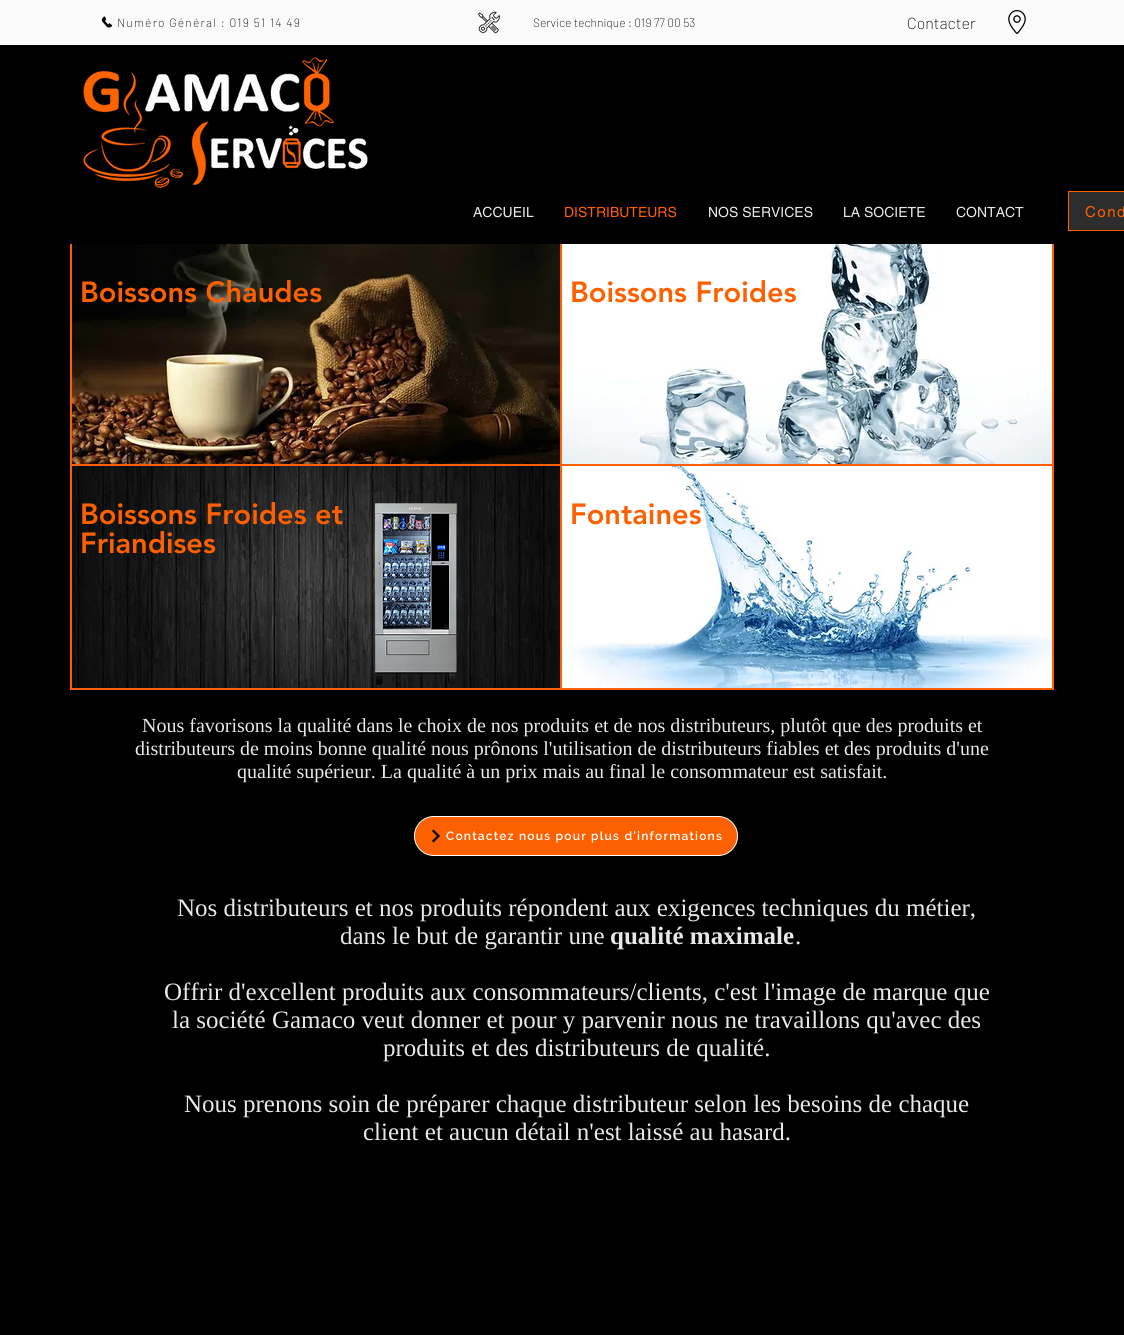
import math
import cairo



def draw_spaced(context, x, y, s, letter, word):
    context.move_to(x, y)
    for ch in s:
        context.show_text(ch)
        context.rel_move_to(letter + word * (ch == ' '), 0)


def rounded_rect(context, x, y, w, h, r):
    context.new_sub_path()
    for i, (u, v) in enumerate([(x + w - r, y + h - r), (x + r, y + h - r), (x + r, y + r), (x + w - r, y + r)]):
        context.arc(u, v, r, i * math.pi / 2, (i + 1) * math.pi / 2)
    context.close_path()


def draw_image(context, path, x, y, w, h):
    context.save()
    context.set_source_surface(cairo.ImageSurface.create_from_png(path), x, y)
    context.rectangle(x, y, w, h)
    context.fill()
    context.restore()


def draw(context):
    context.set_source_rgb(0, 0, 0)
    context.paint()
    context.set_source_rgb(250 / 255, 250 / 255, 250 / 255)
    context.rectangle(0, 0, 1124, 45)
    context.fill()
    draw_image(context, "images/1.png", 101, 16, 12, 12)
    draw_image(context, "images/2.png", 478, 11, 23, 23)
    draw_image(context, "images/3.png", 1008, 10, 18, 24)
    draw_image(context, "images/4.png", 83, 57, 285, 131)
    context.set_source_rgb(45 / 255, 45 / 255, 45 / 255)
    context.rectangle(1068.5, 191.5, 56, 39)
    context.fill_preserve()
    context.set_source_rgb(252 / 255, 96 / 255, 0)
    context.set_line_width(1)
    context.stroke()
    context.rectangle(71, 243, 492, 224)
    context.set_line_width(2)
    context.stroke()
    context.rectangle(71, 465, 492, 224)
    context.stroke()
    context.rectangle(561, 243, 492, 224)
    context.stroke()
    context.set_source_rgb(0, 0, 0)
    context.rectangle(70, 242, 984, 2)
    context.fill()
    draw_image(context, "images/5.png", 72, 244, 488, 220)
    draw_image(context, "images/6.png", 72, 466, 488, 222)
    draw_image(context, "images/7.png", 562, 244, 490, 220)
    context.rectangle(561, 465, 492, 224)
    context.set_source_rgb(252 / 255, 96 / 255, 0)
    context.stroke()
    draw_image(context, "images/8.png", 562, 466, 490, 222)
    draw_image(context, "images/9.png", 374, 503, 83, 183)
    rounded_rect(context, 414.5, 816.5, 323, 39, 19.5)
    context.fill_preserve()
    context.set_source_rgb(1, 1, 1)
    context.set_line_width(1)
    context.stroke()
    draw_image(context, "images/10.png", 432, 829, 8, 14)
    context.select_font_face("Barlow ExtraLight")
    context.set_font_size(12)
    context.set_source_rgb(0, 0, 0)
    draw_spaced(context, 117, 27, "Numéro Général : 019 51 14 49", 1.2, 0)
    context.move_to(533, 27)
    context.show_text("Service technique : 019 77 00 53")
    context.set_font_size(16)
    context.move_to(907, 29)
    context.show_text("Contacter")
    context.select_font_face("helvetica")
    context.set_font_size(14)
    context.set_source_rgb(232 / 255, 232 / 255, 232 / 255)
    context.move_to(473, 217)
    context.show_text("ACCUEIL")
    context.set_source_rgb(252 / 255, 96 / 255, 0)
    context.move_to(564, 217)
    context.show_text("DISTRIBUTEURS")
    context.set_source_rgb(232 / 255, 232 / 255, 232 / 255)
    context.move_to(708, 217)
    context.show_text("NOS SERVICES")
    context.move_to(843, 217)
    context.show_text("LA SOCIETE")
    context.move_to(956, 217)
    context.show_text("CONTACT")
    context.set_font_size(15)
    context.set_source_rgb(252 / 255, 96 / 255, 0)
    draw_spaced(context, 1085, 217, "Cond", 1.5, 0)
    context.select_font_face("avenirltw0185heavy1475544 Black")
    context.set_font_size(29)
    context.move_to(80, 302)
    context.show_text("Boissons Chaudes")
    context.move_to(80, 524)
    context.show_text("Boissons Froides et")
    context.move_to(80, 553)
    context.show_text("Friandises")
    context.move_to(570, 302)
    context.show_text("Boissons Froides")
    context.move_to(570, 524)
    context.show_text("Fontaines")
    context.select_font_face("Liberation Serif")
    context.set_font_size(20)
    context.set_source_rgb(232 / 255, 232 / 255, 232 / 255)
    context.move_to(142, 732)
    context.show_text("Nous favorisons la qualité dans le choix de nos produits et de nos distributeurs, plutôt que des produits et")
    context.move_to(135, 755)
    context.show_text("distributeurs de moins bonne qualité nous prônons l'utilisation de distributeurs fiables et des produits d'une")
    context.move_to(237, 778)
    context.show_text("qualité supérieur. La qualité à un prix mais au final le consommateur est satisfait.")
    context.select_font_face("Raleway SemiBold")
    context.set_font_size(12)
    context.set_source_rgb(1, 1, 1)
    draw_spaced(context, 446, 840, "Contactez nous pour plus d'informations", 1.2, 0)
    context.select_font_face("Liberation Serif")
    context.set_font_size(25)
    context.set_source_rgb(232 / 255, 232 / 255, 232 / 255)
    context.move_to(177, 916)
    context.show_text("Nos distributeurs et nos produits répondent aux exigences techniques du métier,")
    context.move_to(340, 944)
    context.show_text("dans le but de garantir une")
    context.select_font_face("Liberation Serif", cairo.FontSlant.NORMAL, cairo.FontWeight.BOLD)
    context.move_to(610, 944)
    context.show_text("qualité maximale")
    context.select_font_face("Liberation Serif")
    context.move_to(795, 944)
    context.show_text(".")
    context.move_to(164, 1000)
    context.show_text("Offrir d'excellent produits aux consommateurs/clients, c'est l'image de marque que")
    context.move_to(172, 1028)
    context.show_text("la société Gamaco veut donner et pour y parvenir nous ne travaillons qu'avec des")
    context.move_to(383, 1056)
    context.show_text("produits et des distributeurs de qualité.")
    context.move_to(184, 1112)
    context.show_text("Nous prenons soin de préparer chaque distributeur selon les besoins de chaque")
    context.move_to(363, 1140)
    context.show_text("client et aucun détail n'est laissé au hasard.")


surface = cairo.ImageSurface(cairo.Format.RGB24, 1124, 1335)
context = cairo.Context(surface)
options = cairo.FontOptions()
options.set_hint_metrics(cairo.HintMetrics.OFF)
options.set_hint_style(cairo.HintStyle.NONE)
context.set_font_options(options)
context.set_miter_limit(4)
draw(context)
surface.write_to_png("out.png")
